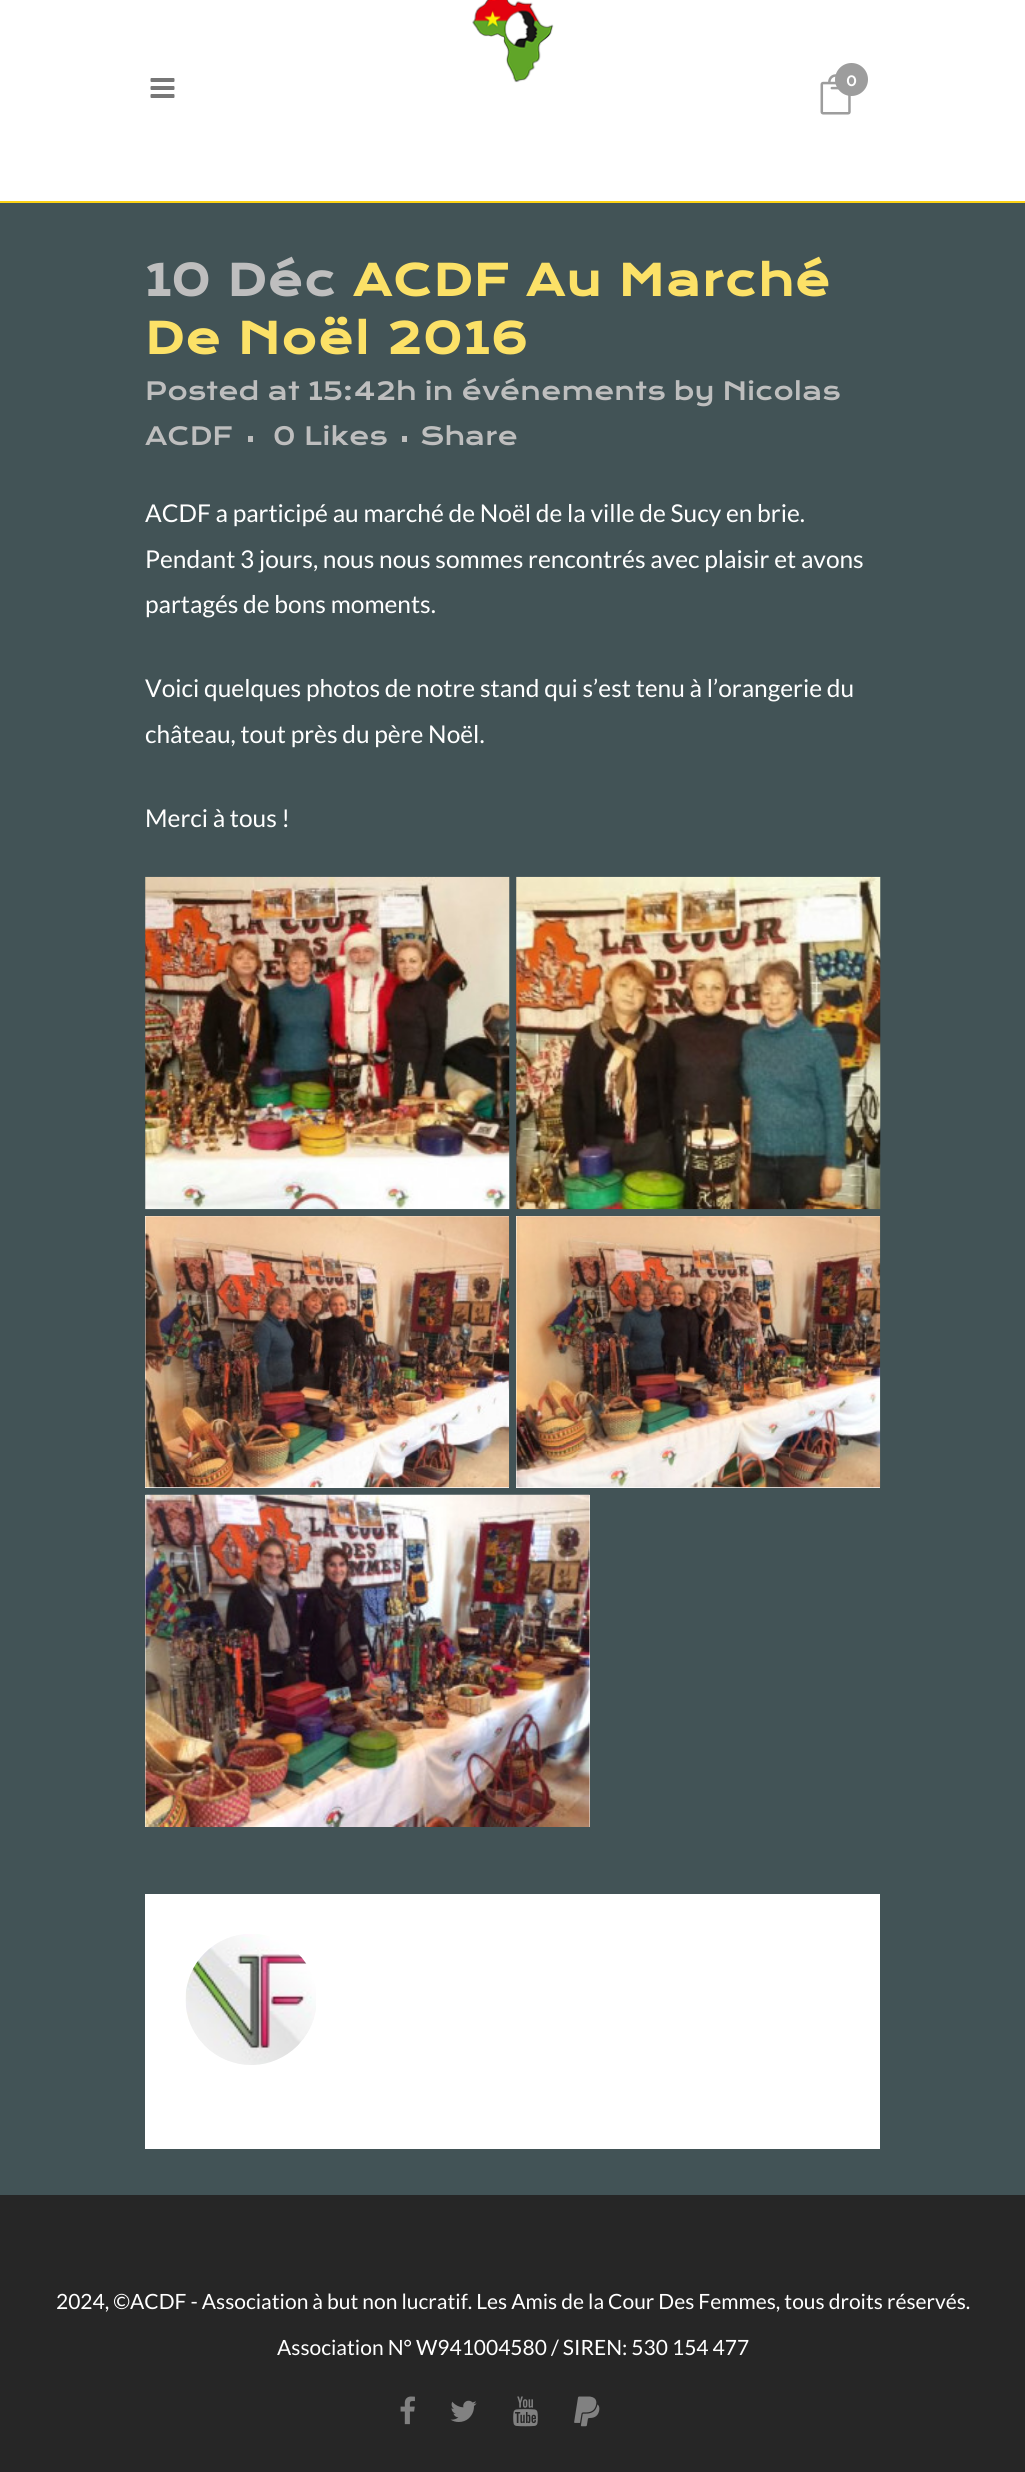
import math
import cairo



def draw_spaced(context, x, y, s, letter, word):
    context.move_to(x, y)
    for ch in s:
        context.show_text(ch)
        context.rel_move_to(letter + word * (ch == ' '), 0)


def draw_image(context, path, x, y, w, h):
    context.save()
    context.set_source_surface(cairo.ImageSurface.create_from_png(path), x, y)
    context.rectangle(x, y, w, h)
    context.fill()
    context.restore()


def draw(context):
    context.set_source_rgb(66 / 255, 83 / 255, 86 / 255)
    context.paint()
    context.set_source_rgb(1, 1, 1)
    context.rectangle(0, 0, 1025, 201)
    context.fill()
    context.set_source_rgb(252 / 255, 209 / 255, 22 / 255)
    context.rectangle(0, 201, 1025, 2)
    context.fill()
    draw_image(context, "images/1.png", 472, 0, 82, 83)
    draw_image(context, "images/2.png", 150, 78, 25, 20)
    draw_image(context, "images/3.png", 820, 74, 31, 41)
    context.set_source_rgb(157 / 255, 157 / 255, 157 / 255)
    context.arc(851.5, 79.5, 16.5, 0, 2 * math.pi)
    context.fill()
    context.set_source_rgb(190 / 255, 190 / 255, 190 / 255)
    context.rectangle(248, 436, 5, 6)
    context.fill()
    context.rectangle(402, 436, 5, 6)
    context.fill()
    draw_image(context, "images/4.png", 145, 876, 365, 334)
    draw_image(context, "images/5.png", 516, 876, 365, 334)
    context.set_source_rgb(1, 1, 1)
    context.rectangle(145, 1216, 364, 272)
    context.fill()
    draw_image(context, "images/6.png", 145, 1216, 365, 272)
    context.rectangle(516, 1216, 364, 272)
    context.fill()
    draw_image(context, "images/7.png", 516, 1216, 365, 272)
    context.rectangle(145, 1495, 445, 332)
    context.fill()
    draw_image(context, "images/8.png", 145, 1494, 445, 333)
    context.rectangle(145, 1894, 735, 255)
    context.fill()
    draw_image(context, "images/9.png", 185, 1934, 131, 131)
    context.set_source_rgb(38 / 255, 38 / 255, 38 / 255)
    context.rectangle(0, 2195, 1025, 277)
    context.fill()
    draw_image(context, "images/10.png", 400, 2396, 15, 29)
    draw_image(context, "images/11.png", 450, 2400, 27, 22)
    draw_image(context, "images/12.png", 513, 2396, 25, 31)
    draw_image(context, "images/13.png", 574, 2396, 26, 31)
    context.select_font_face("Raleway SemiBold")
    context.set_font_size(18)
    context.set_source_rgb(1, 1, 1)
    context.move_to(846, 86)
    context.show_text("0")
    context.select_font_face("Krona One", cairo.FontSlant.NORMAL, cairo.FontWeight.BOLD)
    context.set_font_size(42)
    context.set_source_rgb(190 / 255, 190 / 255, 190 / 255)
    draw_spaced(context, 145, 296, "10 Déc", 1.75, 0)
    context.set_source_rgb(252 / 255, 225 / 255, 103 / 255)
    draw_spaced(context, 353, 296, "ACDF Au Marché", 1.75, 0)
    draw_spaced(context, 145, 354, "De Noël 2016", 1.75, 0)
    context.select_font_face("Krona One")
    context.set_font_size(24.5)
    context.set_source_rgb(190 / 255, 190 / 255, 190 / 255)
    context.move_to(145, 400)
    context.show_text("Posted at 15:42h in événements by Nicolas")
    context.move_to(145, 445)
    context.show_text("ACDF")
    context.move_to(273, 445)
    context.show_text("0")
    context.move_to(304, 445)
    context.show_text("Likes")
    context.move_to(420, 445)
    context.show_text("Share")
    context.select_font_face("Lato")
    context.set_source_rgb(1, 1, 1)
    context.move_to(145, 522)
    context.show_text("ACDF a participé au marché de Noël de la ville de Sucy en brie.")
    context.move_to(145, 568)
    context.show_text("Pendant 3 jours, nous nous sommes rencontrés avec plaisir et avons")
    context.move_to(145, 613)
    context.show_text("partagés de bons moments.")
    context.move_to(145, 697)
    context.show_text("Voici quelques photos de notre stand qui s’est tenu à l’orangerie du")
    context.move_to(145, 743)
    context.show_text("château, tout près du père Noël.")
    context.move_to(145, 827)
    context.show_text("Merci à tous !")
    context.set_font_size(21)
    context.move_to(56, 2309)
    context.show_text("2024, ©ACDF - Association à but non lucratif. Les Amis de la Cour Des Femmes, tous droits réservés.")
    context.move_to(277, 2355)
    context.show_text("Association N° W941004580 / SIREN: 530 154 477")


surface = cairo.ImageSurface(cairo.Format.RGB24, 1025, 2472)
context = cairo.Context(surface)
options = cairo.FontOptions()
options.set_hint_metrics(cairo.HintMetrics.OFF)
options.set_hint_style(cairo.HintStyle.NONE)
context.set_font_options(options)
context.set_miter_limit(4)
draw(context)
surface.write_to_png("out.png")
